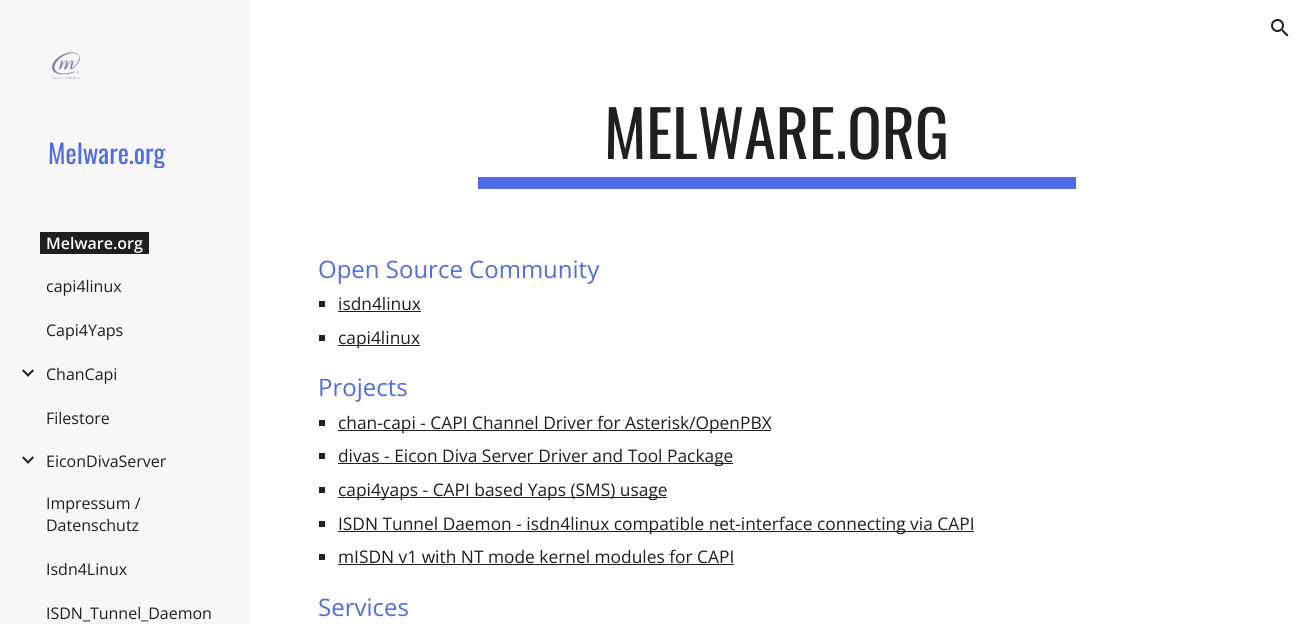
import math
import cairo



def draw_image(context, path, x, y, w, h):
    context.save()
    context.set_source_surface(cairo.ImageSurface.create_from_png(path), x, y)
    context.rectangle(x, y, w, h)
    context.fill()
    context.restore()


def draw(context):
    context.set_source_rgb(1, 1, 1)
    context.paint()
    draw_image(context, "images/1.png", 1271, 19, 18, 18)
    context.set_source_rgb(247 / 255, 247 / 255, 247 / 255)
    context.rectangle(0, 0, 250, 624)
    context.fill()
    draw_image(context, "images/2.png", 52, 52, 28, 28)
    context.set_source_rgb(31 / 255, 31 / 255, 31 / 255)
    context.rectangle(40, 232, 109, 22)
    context.fill()
    draw_image(context, "images/3.png", 22, 369, 12, 8)
    draw_image(context, "images/3.png", 22, 456, 12, 8)
    context.set_source_rgb(79 / 255, 108 / 255, 228 / 255)
    context.rectangle(478, 177, 598, 12)
    context.fill()
    context.set_source_rgb(33 / 255, 33 / 255, 33 / 255)
    context.rectangle(319, 301, 6, 6)
    context.fill()
    context.rectangle(338, 311, 83, 1)
    context.fill()
    context.rectangle(319, 335, 6, 6)
    context.fill()
    context.rectangle(338, 345, 82, 1)
    context.fill()
    context.rectangle(319, 420, 6, 6)
    context.fill()
    context.rectangle(338, 430, 433, 1)
    context.fill()
    context.rectangle(319, 453, 6, 6)
    context.fill()
    context.rectangle(338, 463, 395, 1)
    context.fill()
    context.rectangle(319, 487, 6, 6)
    context.fill()
    context.rectangle(338, 497, 329, 1)
    context.fill()
    context.rectangle(319, 521, 6, 6)
    context.fill()
    context.rectangle(338, 531, 636, 1)
    context.fill()
    context.rectangle(319, 554, 6, 6)
    context.fill()
    context.rectangle(338, 564, 396, 1)
    context.fill()
    context.save()
    context.rectangle(48, 136, 170, 32)
    context.clip()
    context.select_font_face("Oswald")
    context.set_font_size(26.5)
    context.set_source_rgb(79 / 255, 108 / 255, 228 / 255)
    context.move_to(48, 164)
    context.show_text("Melware.org")
    context.restore()
    context.select_font_face("Open Sans SemiBold")
    context.set_font_size(16)
    context.set_source_rgb(1, 1, 1)
    context.move_to(46, 249)
    context.show_text("Melware.org")
    context.select_font_face("Open Sans")
    context.set_source_rgb(31 / 255, 31 / 255, 31 / 255)
    context.move_to(46, 292)
    context.show_text("capi4linux")
    context.move_to(46, 336)
    context.show_text("Capi4Yaps")
    context.move_to(46, 380)
    context.show_text("ChanCapi")
    context.move_to(46, 424)
    context.show_text("Filestore")
    context.move_to(46, 467)
    context.show_text("EiconDivaServer")
    context.move_to(46, 509)
    context.show_text("Impressum /")
    context.move_to(46, 531)
    context.show_text("Datenschutz")
    context.move_to(46, 575)
    context.show_text("Isdn4Linux")
    context.move_to(46, 619)
    context.show_text("ISDN_Tunnel_Daemon")
    context.select_font_face("Oswald")
    context.set_font_size(64)
    context.move_to(604, 159)
    context.show_text("MELWARE.ORG")
    context.select_font_face("Open Sans")
    context.set_font_size(24)
    context.set_source_rgb(79 / 255, 108 / 255, 228 / 255)
    context.move_to(318, 278)
    context.show_text("Open Source Community")
    context.set_font_size(17.35)
    context.set_source_rgb(31 / 255, 31 / 255, 31 / 255)
    context.move_to(338, 310)
    context.show_text("isdn4linux")
    context.move_to(338, 344)
    context.show_text("capi4linux")
    context.set_font_size(24)
    context.set_source_rgb(79 / 255, 108 / 255, 228 / 255)
    context.move_to(318, 396)
    context.show_text("Projects")
    context.set_font_size(17.35)
    context.set_source_rgb(31 / 255, 31 / 255, 31 / 255)
    context.move_to(338, 429)
    context.show_text("chan-capi - CAPI Channel Driver for Asterisk/OpenPBX")
    context.move_to(338, 462)
    context.show_text("divas - Eicon Diva Server Driver and Tool Package")
    context.move_to(338, 496)
    context.show_text("capi4yaps - CAPI based Yaps (SMS) usage")
    context.move_to(338, 530)
    context.show_text("ISDN Tunnel Daemon - isdn4linux compatible net-interface connecting via CAPI")
    context.move_to(338, 563)
    context.show_text("mISDN v1 with NT mode kernel modules for CAPI")
    context.set_font_size(24)
    context.set_source_rgb(79 / 255, 108 / 255, 228 / 255)
    context.move_to(318, 616)
    context.show_text("Services")


surface = cairo.ImageSurface(cairo.Format.RGB24, 1304, 624)
context = cairo.Context(surface)
options = cairo.FontOptions()
options.set_hint_metrics(cairo.HintMetrics.OFF)
options.set_hint_style(cairo.HintStyle.NONE)
context.set_font_options(options)
context.set_miter_limit(4)
draw(context)
surface.write_to_png("out.png")
